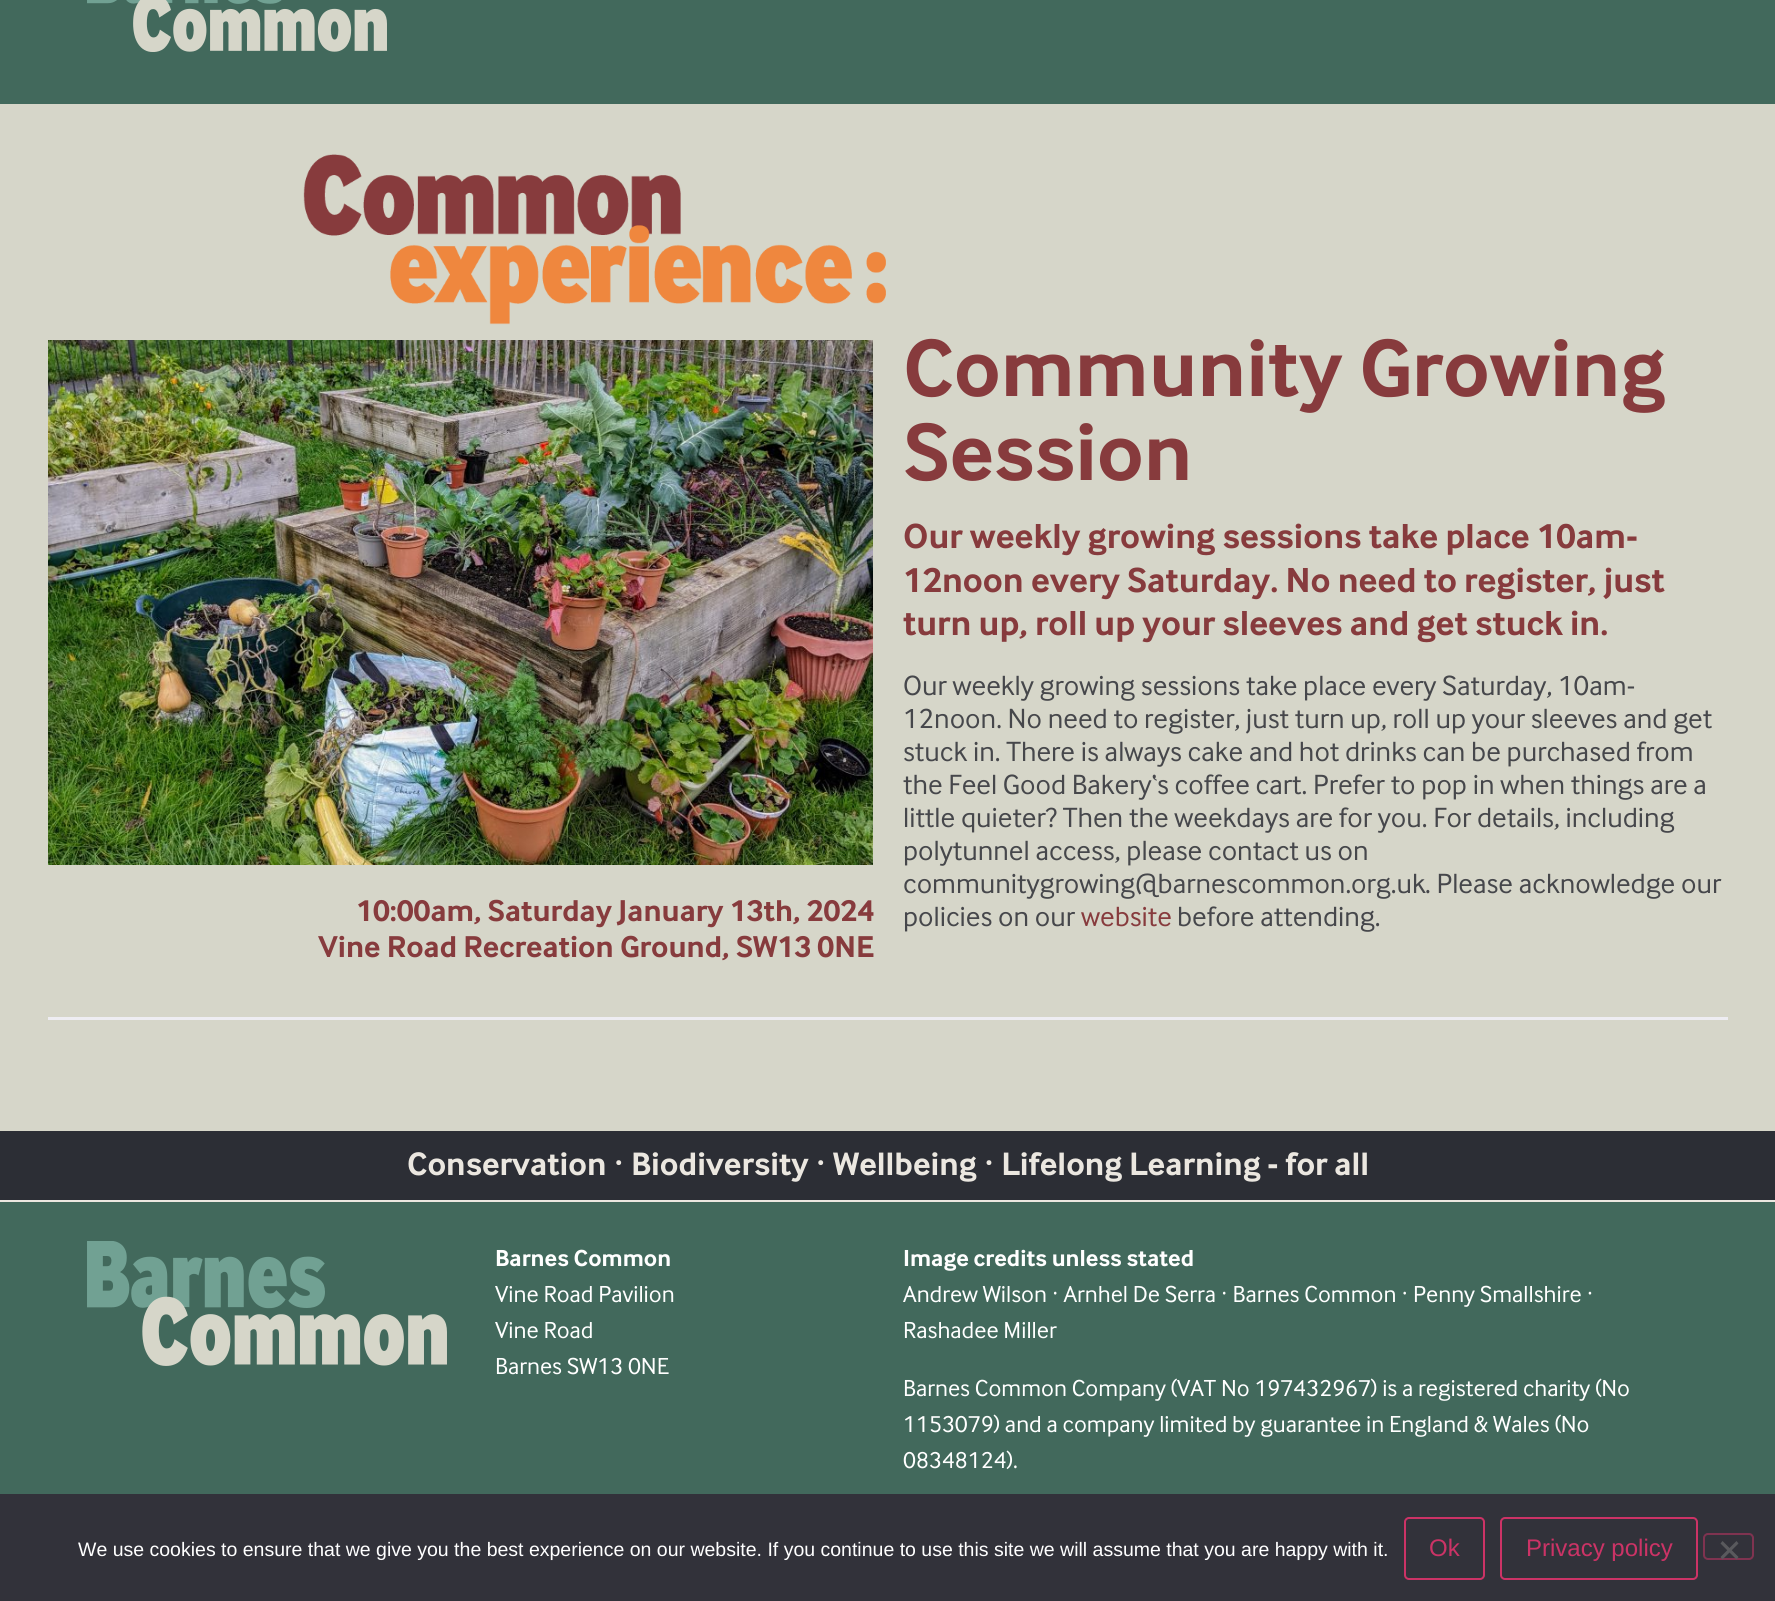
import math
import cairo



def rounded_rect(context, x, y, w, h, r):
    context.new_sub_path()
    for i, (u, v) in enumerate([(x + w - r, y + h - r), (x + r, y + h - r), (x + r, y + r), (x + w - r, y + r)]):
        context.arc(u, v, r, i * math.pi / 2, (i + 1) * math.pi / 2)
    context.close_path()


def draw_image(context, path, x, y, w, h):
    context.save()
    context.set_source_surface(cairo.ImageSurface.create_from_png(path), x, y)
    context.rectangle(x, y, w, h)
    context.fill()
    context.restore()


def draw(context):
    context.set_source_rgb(214 / 255, 214 / 255, 201 / 255)
    context.paint()
    context.set_source_rgb(66 / 255, 105 / 255, 92 / 255)
    context.rectangle(0, 0, 1775, 104)
    context.fill()
    draw_image(context, "images/1.png", 87, 0, 300, 52)
    draw_image(context, "images/2.png", 303, 154, 583, 171)
    draw_image(context, "images/3.png", 48, 340, 825, 525)
    context.set_source_rgb(238 / 255, 237 / 255, 242 / 255)
    context.rectangle(48, 1017, 1680, 3)
    context.fill()
    context.set_source_rgb(44 / 255, 46 / 255, 53 / 255)
    context.rectangle(0, 1131, 1775, 69)
    context.fill()
    context.set_source_rgb(66 / 255, 105 / 255, 92 / 255)
    context.rectangle(0, 1202, 1775, 292)
    context.fill()
    context.set_source_rgb(235 / 255, 231 / 255, 224 / 255)
    context.rectangle(0, 1200, 1775, 2)
    context.fill()
    draw_image(context, "images/4.png", 87, 1241, 360, 125)
    context.set_source_rgb(50 / 255, 50 / 255, 58 / 255)
    context.rectangle(0, 1494, 1775, 107)
    context.fill()
    rounded_rect(context, 1405, 1518, 79, 61, 4)
    context.set_source_rgb(204 / 255, 51 / 255, 102 / 255)
    context.stroke()
    rounded_rect(context, 1501, 1518, 196, 61, 4)
    context.stroke()
    rounded_rect(context, 1704, 1534, 49, 25, 4)
    context.set_source_rgb(127 / 255, 51 / 255, 80 / 255)
    context.stroke()
    context.set_source_rgb(89 / 255, 89 / 255, 93 / 255)
    context.new_path()
    context.move_to(1736.5, 1541)
    context.line_to(1738.5, 1543.5)
    context.line_to(1722.5, 1559.5)
    context.line_to(1720.5, 1557)
    context.close_path()
    context.fill()
    context.new_path()
    context.move_to(1720.5, 1543.5)
    context.line_to(1722.5, 1541)
    context.line_to(1738.5, 1557)
    context.line_to(1736.5, 1559.5)
    context.close_path()
    context.fill()
    context.select_font_face("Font", cairo.FontSlant.NORMAL, cairo.FontWeight.BOLD)
    context.set_font_size(31.25)
    context.set_source_rgb(135 / 255, 59 / 255, 61 / 255)
    context.move_to(356, 921)
    context.show_text("10:00am, Saturday January 13th, 2024")
    context.move_to(318, 957)
    context.show_text("Vine Road Recreation Ground, SW13 0NE")
    context.set_font_size(84)
    context.move_to(903, 396)
    context.show_text("Community Growing")
    context.move_to(903, 480)
    context.show_text("Session")
    context.set_font_size(36)
    context.move_to(903, 548)
    context.show_text("Our weekly growing sessions take place 10am-")
    context.move_to(903, 592)
    context.show_text("12noon every Saturday. No need to register, just")
    context.move_to(903, 635)
    context.show_text("turn up, roll up your sleeves and get stuck in.")
    context.select_font_face("Font")
    context.set_font_size(28.8)
    context.set_source_rgb(70 / 255, 71 / 255, 75 / 255)
    context.move_to(903, 695)
    context.show_text("Our weekly growing sessions take place every Saturday, 10am-")
    context.move_to(903, 728)
    context.show_text("12noon. No need to register, just turn up, roll up your sleeves and get")
    context.move_to(903, 761)
    context.show_text("stuck in. There is always cake and hot drinks can be purchased from")
    context.move_to(903, 794)
    context.show_text("the Feel Good Bakery‘s coffee cart. Prefer to pop in when things are a")
    context.move_to(903, 827)
    context.show_text("little quieter? Then the weekdays are for you. For details, including")
    context.move_to(903, 860)
    context.show_text("polytunnel access, please contact us on")
    context.move_to(903, 893)
    context.show_text("communitygrowing@barnescommon.org.uk")
    context.move_to(1425, 893)
    context.show_text(". Please acknowledge our")
    context.move_to(903, 926)
    context.show_text("policies on our")
    context.set_source_rgb(135 / 255, 59 / 255, 61 / 255)
    context.move_to(1081, 926)
    context.show_text("website")
    context.set_source_rgb(70 / 255, 71 / 255, 75 / 255)
    context.move_to(1177, 926)
    context.show_text("before attending.")
    context.select_font_face("Font", cairo.FontSlant.NORMAL, cairo.FontWeight.BOLD)
    context.set_font_size(33.6)
    context.set_source_rgb(235 / 255, 231 / 255, 224 / 255)
    context.move_to(407, 1175)
    context.show_text("Conservation · Biodiversity · Wellbeing · Lifelong Learning - for all")
    context.set_font_size(24)
    context.set_source_rgb(1, 1, 1)
    context.move_to(495, 1266)
    context.show_text("Barnes Common")
    context.select_font_face("Font")
    context.move_to(495, 1302)
    context.show_text("Vine Road Pavilion")
    context.move_to(495, 1338)
    context.show_text("Vine Road")
    context.move_to(495, 1374)
    context.show_text("Barnes SW13 0NE")
    context.select_font_face("Font", cairo.FontSlant.NORMAL, cairo.FontWeight.BOLD)
    context.move_to(903, 1266)
    context.show_text("Image credits unless stated")
    context.select_font_face("Font")
    context.move_to(903, 1302)
    context.show_text("Andrew Wilson · Arnhel De Serra · Barnes Common · Penny Smallshire ·")
    context.move_to(903, 1338)
    context.show_text("Rashadee Miller")
    context.move_to(903, 1396)
    context.show_text("Barnes Common Company (VAT No 197432967) is a registered charity (No")
    context.move_to(903, 1432)
    context.show_text("1153079) and a company limited by guarantee in England & Wales (No")
    context.move_to(903, 1468)
    context.show_text("08348124).")
    context.select_font_face("Liberation Sans")
    context.set_font_size(19.5)
    context.move_to(78, 1556)
    context.show_text("We use cookies to ensure that we give you the best experience on our website. If you continue to use this site we will assume that you are happy with it.")
    context.set_font_size(24)
    context.set_source_rgb(204 / 255, 51 / 255, 102 / 255)
    context.move_to(1429, 1556)
    context.show_text("Ok")
    context.move_to(1526, 1556)
    context.show_text("Privacy policy")


surface = cairo.ImageSurface(cairo.Format.RGB24, 1775, 1601)
context = cairo.Context(surface)
options = cairo.FontOptions()
options.set_hint_metrics(cairo.HintMetrics.OFF)
options.set_hint_style(cairo.HintStyle.NONE)
context.set_font_options(options)
context.set_miter_limit(4)
draw(context)
surface.write_to_png("out.png")
